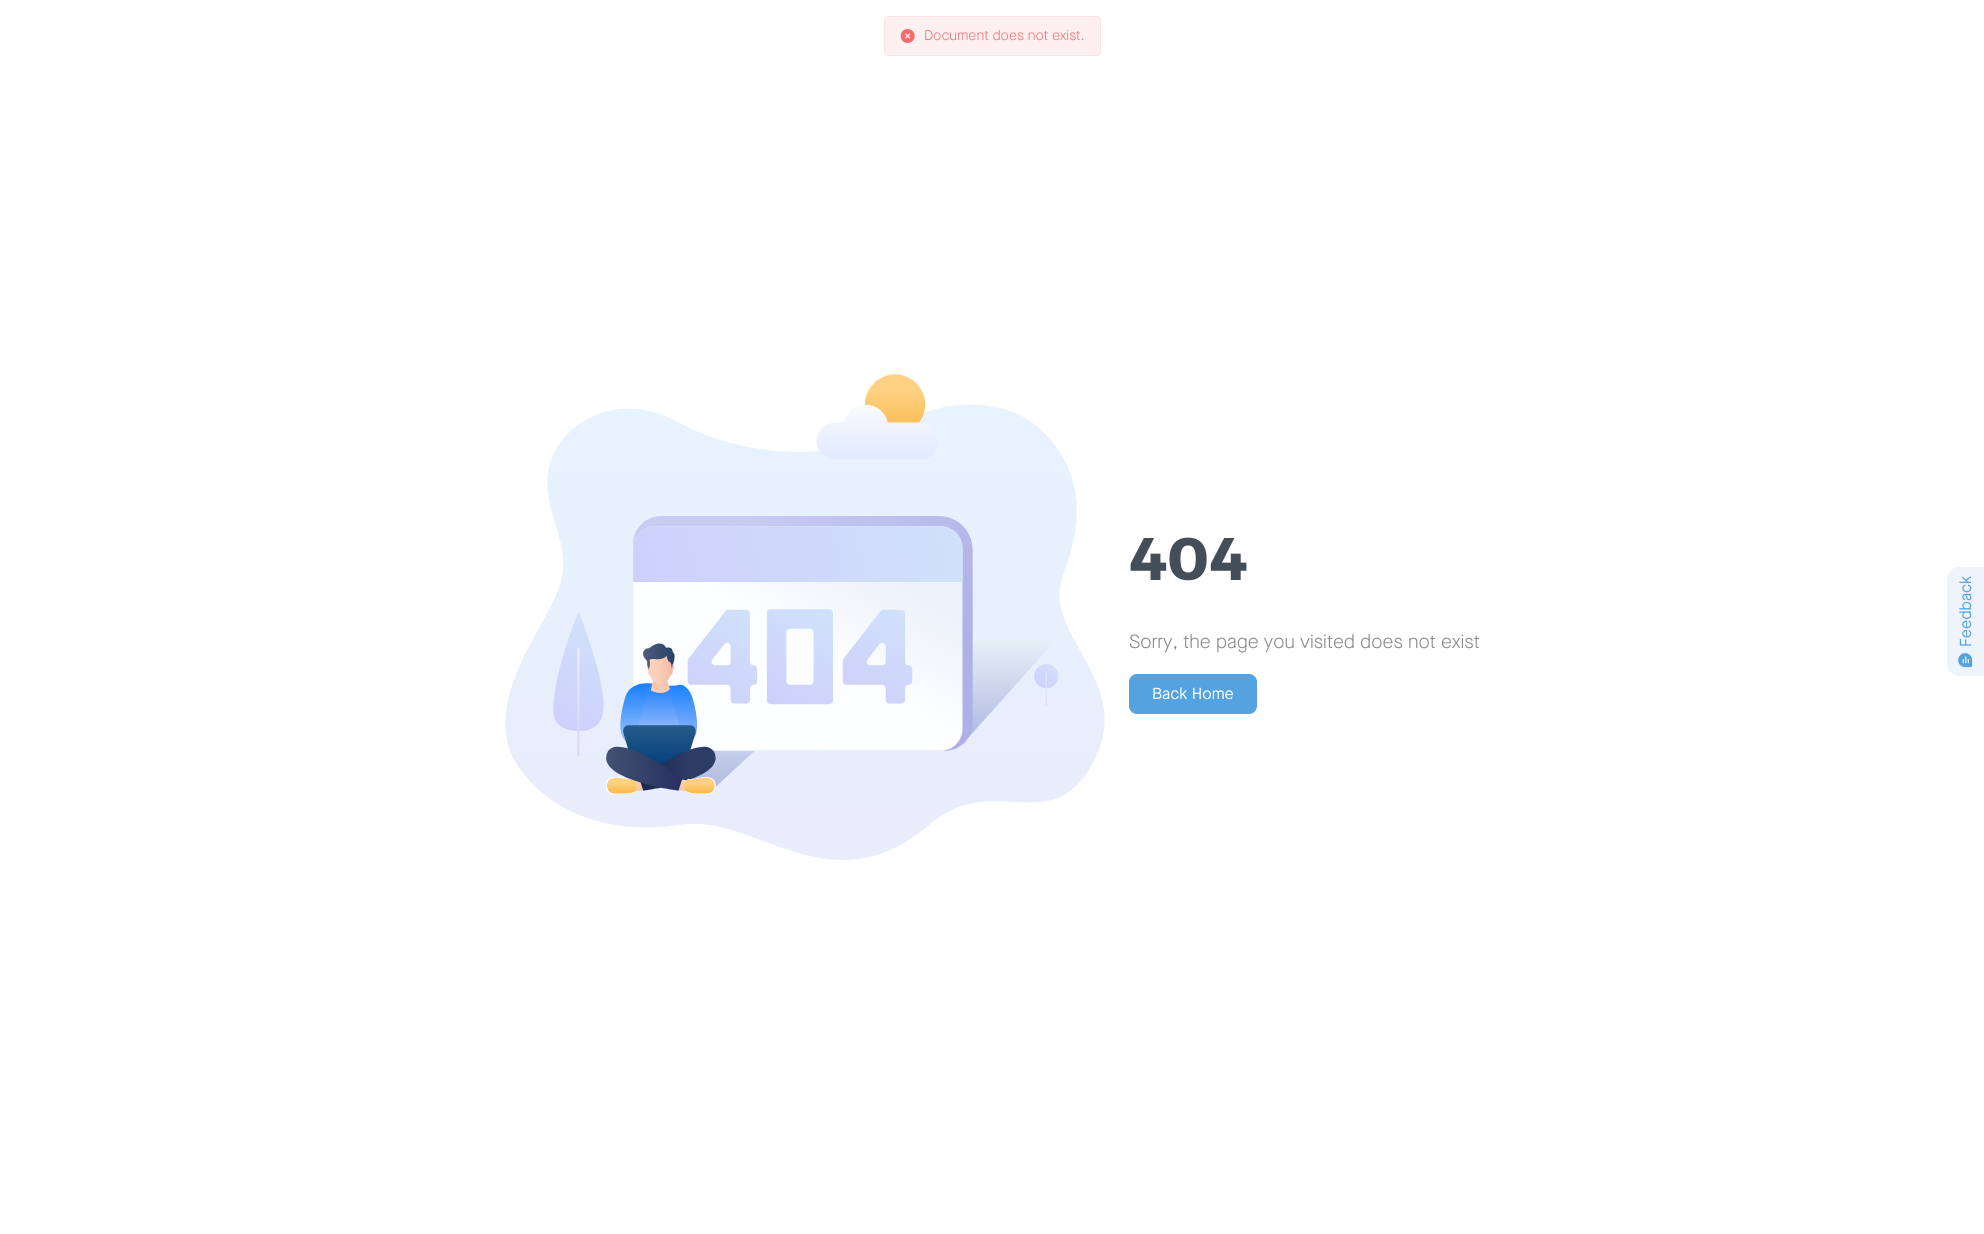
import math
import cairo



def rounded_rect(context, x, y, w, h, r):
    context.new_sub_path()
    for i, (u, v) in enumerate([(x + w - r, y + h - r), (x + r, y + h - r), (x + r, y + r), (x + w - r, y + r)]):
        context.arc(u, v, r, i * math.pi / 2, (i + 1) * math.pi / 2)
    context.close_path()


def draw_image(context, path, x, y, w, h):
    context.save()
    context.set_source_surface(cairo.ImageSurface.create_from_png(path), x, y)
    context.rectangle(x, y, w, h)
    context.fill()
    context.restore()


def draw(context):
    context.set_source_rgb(1, 1, 1)
    context.paint()
    context.set_source_rgb(254 / 255, 240 / 255, 240 / 255)
    rounded_rect(context, 884.5, 16.5, 216, 39, 3.5)
    context.fill_preserve()
    context.set_source_rgb(253 / 255, 226 / 255, 226 / 255)
    context.set_line_width(1)
    context.stroke()
    draw_image(context, "images/1.png", 900, 29, 15, 14)
    draw_image(context, "images/2.png", 505, 374, 600, 486)
    context.set_source_rgb(85 / 255, 162 / 255, 224 / 255)
    rounded_rect(context, 1129.5, 674.5, 127, 39, 7.5)
    context.fill_preserve()
    context.stroke()
    context.set_source_rgb(239 / 255, 243 / 255, 251 / 255)
    context.new_path()
    context.move_to(1947, 664)
    context.line_to(1947, 579)
    context.curve_to(1947, 573, 1952, 567, 1959, 567)
    context.line_to(1984, 567)
    context.line_to(1984, 676)
    context.line_to(1959, 676)
    context.curve_to(1952, 676, 1947, 670, 1947, 664)
    context.close_path()
    context.fill()
    draw_image(context, "images/3.png", 1958, 653, 15, 15)
    context.select_font_face("Maison Neue Light")
    context.set_font_size(14)
    context.set_source_rgb(245 / 255, 108 / 255, 108 / 255)
    context.move_to(924, 40)
    context.show_text("Document does not exist.")
    context.select_font_face("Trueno", cairo.FontSlant.NORMAL, cairo.FontWeight.BOLD)
    context.set_font_size(60)
    context.set_source_rgb(67 / 255, 78 / 255, 89 / 255)
    context.move_to(1129, 580)
    context.show_text("404")
    context.select_font_face("Maison Neue Light")
    context.set_font_size(19)
    context.set_source_rgb(132 / 255, 133 / 255, 135 / 255)
    context.move_to(1129, 648)
    context.show_text("Sorry, the page you visited does not exist")
    context.select_font_face("Maison Neue")
    context.set_font_size(16)
    context.set_source_rgb(1, 1, 1)
    context.move_to(1152, 699)
    context.show_text("Back Home")
    context.set_source_rgb(85 / 255, 162 / 255, 224 / 255)
    context.save()
    context.translate(1971, 647)
    context.rotate(-90 * math.pi / 180)
    context.move_to(0, 0)
    context.show_text("Feedback")
    context.restore()


surface = cairo.ImageSurface(cairo.Format.RGB24, 1984, 1234)
context = cairo.Context(surface)
options = cairo.FontOptions()
options.set_hint_metrics(cairo.HintMetrics.OFF)
options.set_hint_style(cairo.HintStyle.NONE)
context.set_font_options(options)
context.set_miter_limit(4)
draw(context)
surface.write_to_png("out.png")
